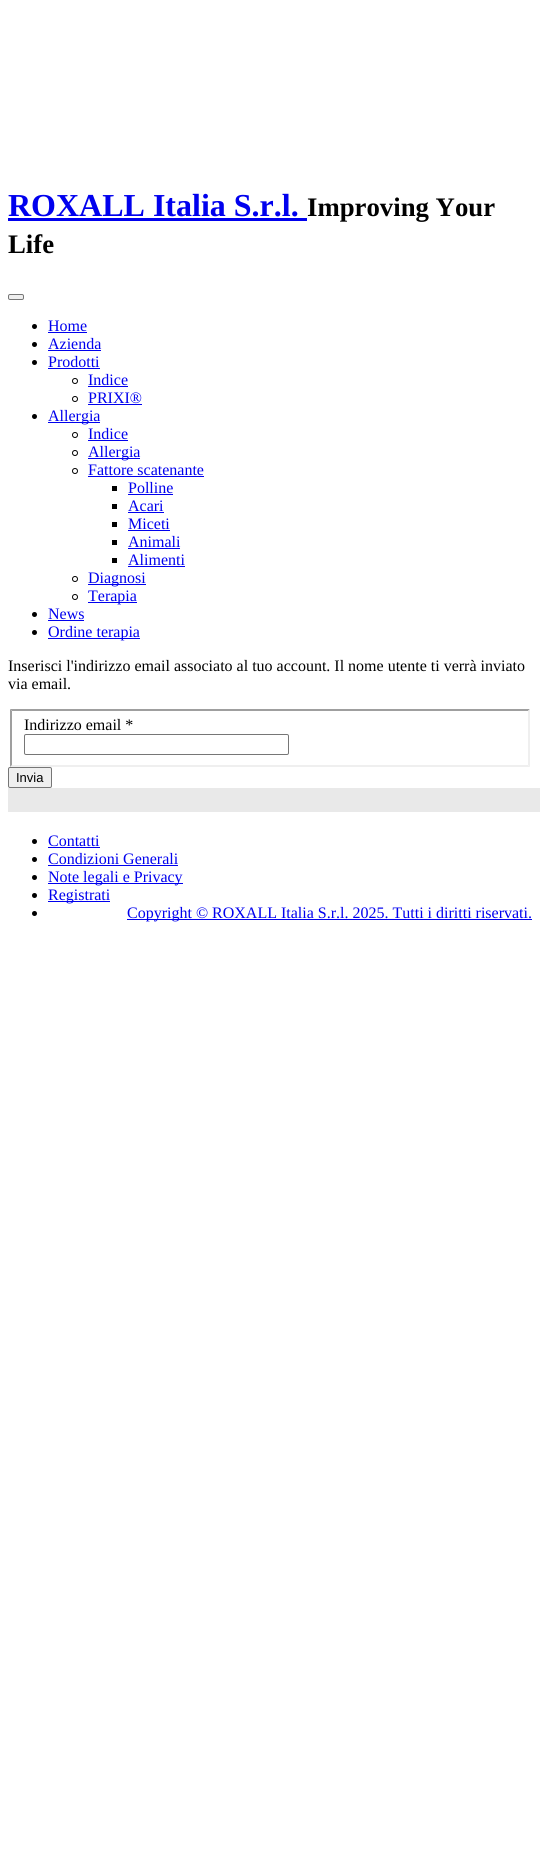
import math
import cairo



def rounded_rect(context, x, y, w, h, r):
    context.new_sub_path()
    for i, (u, v) in enumerate([(x + w - r, y + h - r), (x + r, y + h - r), (x + r, y + r), (x + w - r, y + r)]):
        context.arc(u, v, r, i * math.pi / 2, (i + 1) * math.pi / 2)
    context.close_path()


def draw(context):
    context.set_source_rgb(1, 1, 1)
    context.paint()
    context.set_source_rgb(0, 0, 238 / 255)
    context.rectangle(8, 218, 299, 3)
    context.fill()
    context.set_source_rgb(239 / 255, 239 / 255, 239 / 255)
    rounded_rect(context, 8.5, 294.5, 15, 5, 1.5)
    context.fill_preserve()
    context.set_source_rgb(118 / 255, 118 / 255, 118 / 255)
    context.set_line_width(1)
    context.stroke()
    context.set_source_rgb(0, 0, 0)
    context.arc(34.5, 326.5, 2.5, 0, 2 * math.pi)
    context.fill()
    context.set_source_rgb(0, 0, 238 / 255)
    context.rectangle(48, 332, 39, 1)
    context.fill()
    context.set_source_rgb(0, 0, 0)
    context.arc(34.5, 344.5, 2.5, 0, 2 * math.pi)
    context.fill()
    context.set_source_rgb(0, 0, 238 / 255)
    context.rectangle(48, 350, 53, 1)
    context.fill()
    context.set_source_rgb(0, 0, 0)
    context.arc(34.5, 362.5, 2.5, 0, 2 * math.pi)
    context.fill()
    context.set_source_rgb(0, 0, 238 / 255)
    context.rectangle(48, 368, 52, 1)
    context.fill()
    context.arc(75, 381, 2.5, 0, 2 * math.pi)
    context.set_source_rgb(0, 0, 0)
    context.stroke()
    context.set_source_rgb(0, 0, 238 / 255)
    context.rectangle(88, 386, 40, 1)
    context.fill()
    context.arc(75, 399, 2.5, 0, 2 * math.pi)
    context.set_source_rgb(0, 0, 0)
    context.stroke()
    context.set_source_rgb(0, 0, 238 / 255)
    context.rectangle(88, 404, 54, 1)
    context.fill()
    context.set_source_rgb(0, 0, 0)
    context.arc(34.5, 416.5, 2.5, 0, 2 * math.pi)
    context.fill()
    context.set_source_rgb(0, 0, 238 / 255)
    context.rectangle(48, 422, 52, 1)
    context.fill()
    context.arc(75, 435, 2.5, 0, 2 * math.pi)
    context.set_source_rgb(0, 0, 0)
    context.stroke()
    context.set_source_rgb(0, 0, 238 / 255)
    context.rectangle(88, 440, 40, 1)
    context.fill()
    context.arc(75, 453, 2.5, 0, 2 * math.pi)
    context.set_source_rgb(0, 0, 0)
    context.stroke()
    context.set_source_rgb(0, 0, 238 / 255)
    context.rectangle(88, 458, 52, 1)
    context.fill()
    context.arc(75, 471, 2.5, 0, 2 * math.pi)
    context.set_source_rgb(0, 0, 0)
    context.stroke()
    context.set_source_rgb(0, 0, 238 / 255)
    context.rectangle(88, 476, 116, 1)
    context.fill()
    context.set_source_rgb(0, 0, 0)
    context.rectangle(112, 486, 5, 5)
    context.fill()
    context.set_source_rgb(0, 0, 238 / 255)
    context.rectangle(128, 494, 45, 1)
    context.fill()
    context.set_source_rgb(0, 0, 0)
    context.rectangle(112, 504, 5, 5)
    context.fill()
    context.set_source_rgb(0, 0, 238 / 255)
    context.rectangle(128, 512, 36, 1)
    context.fill()
    context.set_source_rgb(0, 0, 0)
    context.rectangle(112, 522, 5, 5)
    context.fill()
    context.set_source_rgb(0, 0, 238 / 255)
    context.rectangle(128, 530, 42, 1)
    context.fill()
    context.set_source_rgb(0, 0, 0)
    context.rectangle(112, 540, 5, 5)
    context.fill()
    context.set_source_rgb(0, 0, 238 / 255)
    context.rectangle(128, 548, 52, 1)
    context.fill()
    context.set_source_rgb(0, 0, 0)
    context.rectangle(112, 558, 5, 5)
    context.fill()
    context.set_source_rgb(0, 0, 238 / 255)
    context.rectangle(128, 566, 57, 1)
    context.fill()
    context.arc(75, 579, 2.5, 0, 2 * math.pi)
    context.set_source_rgb(0, 0, 0)
    context.stroke()
    context.set_source_rgb(0, 0, 238 / 255)
    context.rectangle(88, 584, 58, 1)
    context.fill()
    context.arc(75, 597, 2.5, 0, 2 * math.pi)
    context.set_source_rgb(0, 0, 0)
    context.stroke()
    context.set_source_rgb(0, 0, 238 / 255)
    context.rectangle(88, 602, 49, 1)
    context.fill()
    context.set_source_rgb(0, 0, 0)
    context.arc(34.5, 614.5, 2.5, 0, 2 * math.pi)
    context.fill()
    context.set_source_rgb(0, 0, 238 / 255)
    context.rectangle(48, 620, 36, 1)
    context.fill()
    context.set_source_rgb(0, 0, 0)
    context.arc(34.5, 632.5, 2.5, 0, 2 * math.pi)
    context.fill()
    context.set_source_rgb(0, 0, 238 / 255)
    context.rectangle(48, 638, 92, 1)
    context.fill()
    context.set_source_rgb(159 / 255, 159 / 255, 159 / 255)
    context.new_path()
    context.move_to(10, 709)
    context.line_to(530, 709)
    context.line_to(528, 711)
    context.line_to(12, 711)
    context.close_path()
    context.fill()
    context.set_source_rgb(239 / 255, 239 / 255, 239 / 255)
    context.new_path()
    context.move_to(530, 709)
    context.line_to(530, 767)
    context.line_to(528, 765)
    context.line_to(528, 711)
    context.close_path()
    context.fill()
    context.new_path()
    context.move_to(530, 767)
    context.line_to(10, 767)
    context.line_to(12, 765)
    context.line_to(528, 765)
    context.close_path()
    context.fill()
    context.set_source_rgb(159 / 255, 159 / 255, 159 / 255)
    context.new_path()
    context.move_to(10, 767)
    context.line_to(10, 709)
    context.line_to(12, 711)
    context.line_to(12, 765)
    context.close_path()
    context.fill()
    rounded_rect(context, 24.5, 734.5, 264, 20, 1.5)
    context.set_source_rgb(118 / 255, 118 / 255, 118 / 255)
    context.stroke()
    context.set_source_rgb(239 / 255, 239 / 255, 239 / 255)
    rounded_rect(context, 8.5, 767.5, 43, 20, 1.5)
    context.fill_preserve()
    context.set_source_rgb(118 / 255, 118 / 255, 118 / 255)
    context.stroke()
    context.set_source_rgb(233 / 255, 233 / 255, 233 / 255)
    context.rectangle(8, 788, 532, 24)
    context.fill()
    context.set_source_rgb(0, 0, 0)
    context.arc(34.5, 841.5, 2.5, 0, 2 * math.pi)
    context.fill()
    context.set_source_rgb(0, 0, 238 / 255)
    context.rectangle(48, 847, 52, 1)
    context.fill()
    context.set_source_rgb(0, 0, 0)
    context.arc(34.5, 859.5, 2.5, 0, 2 * math.pi)
    context.fill()
    context.set_source_rgb(0, 0, 238 / 255)
    context.rectangle(48, 865, 130, 1)
    context.fill()
    context.set_source_rgb(0, 0, 0)
    context.arc(34.5, 877.5, 2.5, 0, 2 * math.pi)
    context.fill()
    context.set_source_rgb(0, 0, 238 / 255)
    context.rectangle(48, 883, 135, 1)
    context.fill()
    context.set_source_rgb(0, 0, 0)
    context.arc(34.5, 895.5, 2.5, 0, 2 * math.pi)
    context.fill()
    context.set_source_rgb(0, 0, 238 / 255)
    context.rectangle(48, 901, 62, 1)
    context.fill()
    context.set_source_rgb(0, 0, 0)
    context.arc(34.5, 913.5, 2.5, 0, 2 * math.pi)
    context.fill()
    context.set_source_rgb(0, 0, 238 / 255)
    context.rectangle(127, 919, 405, 1)
    context.fill()
    context.select_font_face("Liberation Serif", cairo.FontSlant.NORMAL, cairo.FontWeight.BOLD)
    context.set_font_size(32)
    context.move_to(8, 216)
    context.show_text("ROXALL Italia S.r.l.")
    context.set_font_size(26.75)
    context.set_source_rgb(0, 0, 0)
    context.move_to(307, 216)
    context.show_text("Improving Your")
    context.move_to(8, 253)
    context.show_text("Life")
    context.select_font_face("Liberation Serif")
    context.set_font_size(16)
    context.set_source_rgb(0, 0, 238 / 255)
    context.move_to(48, 331)
    context.show_text("Home")
    context.move_to(48, 349)
    context.show_text("Azienda")
    context.move_to(48, 367)
    context.show_text("Prodotti")
    context.move_to(88, 385)
    context.show_text("Indice")
    context.move_to(88, 403)
    context.show_text("PRIXI®")
    context.move_to(48, 421)
    context.show_text("Allergia")
    context.move_to(88, 439)
    context.show_text("Indice")
    context.move_to(88, 457)
    context.show_text("Allergia")
    context.move_to(88, 475)
    context.show_text("Fattore scatenante")
    context.move_to(128, 493)
    context.show_text("Polline")
    context.move_to(128, 511)
    context.show_text("Acari")
    context.move_to(128, 529)
    context.show_text("Miceti")
    context.move_to(128, 547)
    context.show_text("Animali")
    context.move_to(128, 565)
    context.show_text("Alimenti")
    context.move_to(88, 583)
    context.show_text("Diagnosi")
    context.move_to(88, 601)
    context.show_text("Terapia")
    context.move_to(48, 619)
    context.show_text("News")
    context.move_to(48, 637)
    context.show_text("Ordine terapia")
    context.set_source_rgb(0, 0, 0)
    context.move_to(8, 671)
    context.show_text("Inserisci l'indirizzo email associato al tuo account. Il nome utente ti verrà inviato")
    context.move_to(8, 689)
    context.show_text("via email.")
    context.move_to(24, 730)
    context.show_text("Indirizzo email *")
    context.select_font_face("Liberation Sans")
    context.set_font_size(13)
    context.move_to(16, 782)
    context.show_text("Invia")
    context.select_font_face("Liberation Serif")
    context.set_font_size(16)
    context.set_source_rgb(0, 0, 238 / 255)
    context.move_to(48, 846)
    context.show_text("Contatti")
    context.move_to(48, 864)
    context.show_text("Condizioni Generali")
    context.move_to(48, 882)
    context.show_text("Note legali e Privacy")
    context.move_to(48, 900)
    context.show_text("Registrati")
    context.move_to(127, 918)
    context.show_text("Copyright © ROXALL Italia S.r.l. 2025. Tutti i diritti riservati.")


surface = cairo.ImageSurface(cairo.Format.RGB24, 540, 1871)
context = cairo.Context(surface)
options = cairo.FontOptions()
options.set_hint_metrics(cairo.HintMetrics.OFF)
options.set_hint_style(cairo.HintStyle.NONE)
context.set_font_options(options)
context.set_miter_limit(4)
draw(context)
surface.write_to_png("out.png")
